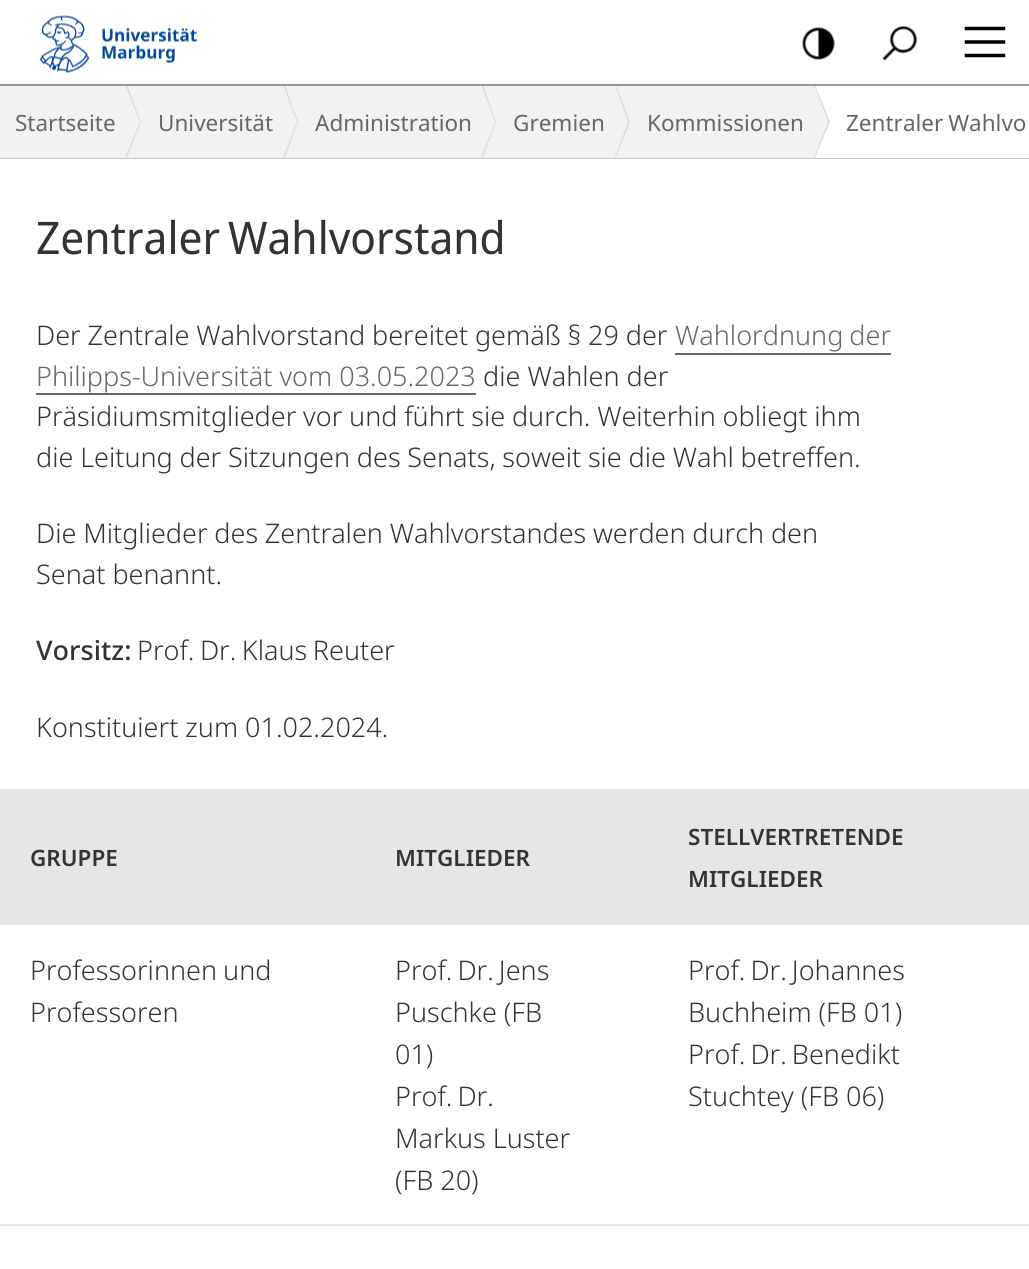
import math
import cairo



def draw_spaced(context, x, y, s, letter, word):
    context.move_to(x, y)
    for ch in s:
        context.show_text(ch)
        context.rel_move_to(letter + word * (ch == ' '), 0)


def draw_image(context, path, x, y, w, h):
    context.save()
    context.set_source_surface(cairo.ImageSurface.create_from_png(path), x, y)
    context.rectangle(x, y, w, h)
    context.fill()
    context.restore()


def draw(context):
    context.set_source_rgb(1, 1, 1)
    context.paint()
    draw_image(context, "images/1.png", 39, 15, 158, 58)
    draw_image(context, "images/2.png", 802, 27, 33, 33)
    draw_image(context, "images/3.png", 882, 26, 35, 35)
    draw_image(context, "images/4.png", 964, 26, 42, 32)
    context.set_source_rgb(152 / 255, 152 / 255, 152 / 255)
    context.rectangle(0, 84, 1029, 2)
    context.fill()
    context.set_source_rgb(199 / 255, 199 / 255, 199 / 255)
    context.rectangle(0, 158, 1029, 1)
    context.fill()
    context.set_source_rgb(242 / 255, 242 / 255, 242 / 255)
    context.rectangle(0, 86, 816, 72)
    context.fill()
    context.save()
    context.rectangle(0, 86, 1029, 72)
    context.clip()
    context.set_source_rgb(221 / 255, 221 / 255, 221 / 255)
    context.new_path()
    context.move_to(126, 160)
    context.line_to(126, 82)
    context.line_to(141, 122)
    context.close_path()
    context.fill()
    context.set_source_rgb(242 / 255, 242 / 255, 242 / 255)
    context.new_path()
    context.move_to(124, 160)
    context.line_to(124, 82)
    context.line_to(140, 122)
    context.close_path()
    context.fill()
    context.set_source_rgb(221 / 255, 221 / 255, 221 / 255)
    context.new_path()
    context.move_to(284, 160)
    context.line_to(284, 82)
    context.line_to(298, 122)
    context.close_path()
    context.fill()
    context.set_source_rgb(242 / 255, 242 / 255, 242 / 255)
    context.new_path()
    context.move_to(282, 160)
    context.line_to(282, 82)
    context.line_to(297, 122)
    context.close_path()
    context.fill()
    context.set_source_rgb(221 / 255, 221 / 255, 221 / 255)
    context.new_path()
    context.move_to(482, 160)
    context.line_to(482, 82)
    context.line_to(496, 122)
    context.close_path()
    context.fill()
    context.set_source_rgb(242 / 255, 242 / 255, 242 / 255)
    context.new_path()
    context.move_to(480, 160)
    context.line_to(480, 82)
    context.line_to(495, 122)
    context.close_path()
    context.fill()
    context.set_source_rgb(221 / 255, 221 / 255, 221 / 255)
    context.new_path()
    context.move_to(615, 160)
    context.line_to(615, 82)
    context.line_to(630, 122)
    context.close_path()
    context.fill()
    context.set_source_rgb(242 / 255, 242 / 255, 242 / 255)
    context.new_path()
    context.move_to(614, 160)
    context.line_to(614, 82)
    context.line_to(628, 122)
    context.close_path()
    context.fill()
    context.set_source_rgb(221 / 255, 221 / 255, 221 / 255)
    context.new_path()
    context.move_to(814, 160)
    context.line_to(814, 82)
    context.line_to(830, 122)
    context.close_path()
    context.fill()
    context.set_source_rgb(242 / 255, 242 / 255, 242 / 255)
    context.new_path()
    context.move_to(813, 160)
    context.line_to(813, 82)
    context.line_to(828, 122)
    context.close_path()
    context.fill()
    context.restore()
    context.set_source_rgb(102 / 255, 102 / 255, 102 / 255)
    context.rectangle(675, 353, 216, 2)
    context.fill()
    context.rectangle(36, 393, 440, 2)
    context.fill()
    context.set_source_rgb(230 / 255, 230 / 255, 230 / 255)
    context.rectangle(0, 789, 1029, 134)
    context.fill()
    context.rectangle(0, 923, 1029, 2)
    context.fill()
    context.rectangle(0, 1224, 1029, 2)
    context.fill()
    context.select_font_face("Noto Sans")
    context.set_font_size(22.5)
    context.set_source_rgb(102 / 255, 102 / 255, 102 / 255)
    context.move_to(15, 131)
    context.show_text("Startseite")
    context.move_to(158, 131)
    context.show_text("Universität")
    context.move_to(315, 131)
    context.show_text("Administration")
    context.move_to(513, 131)
    context.show_text("Gremien")
    context.move_to(647, 131)
    context.show_text("Kommissionen")
    draw_spaced(context, 846, 131, "Zentraler Wahlvo", 0, -1)
    context.select_font_face("Noto Sans Display")
    context.set_font_size(45)
    context.set_source_rgb(51 / 255, 51 / 255, 51 / 255)
    draw_spaced(context, 36, 254, "Zentraler Wahlvorstand", 0, -3)
    context.select_font_face("Noto Sans Light")
    context.set_font_size(27)
    draw_spaced(context, 36, 345, "Der Zentrale Wahlvorstand bereitet gemäß § 29 der", 0, -0.25)
    context.set_source_rgb(102 / 255, 102 / 255, 102 / 255)
    draw_spaced(context, 675, 345, "Wahlordnung der", 0, -1)
    context.move_to(36, 386)
    context.show_text("Philipps-Universität vom 03.05.2023")
    context.set_source_rgb(51 / 255, 51 / 255, 51 / 255)
    context.move_to(483, 386)
    context.show_text("die Wahlen der")
    draw_spaced(context, 36, 426, "Präsidiumsmitglieder vor und führt sie durch. Weiterhin obliegt ihm", 0, -0.25)
    draw_spaced(context, 36, 467, "die Leitung der Sitzungen des Senats, soweit sie die Wahl betreffen.", 0, -0.25)
    draw_spaced(context, 36, 543, "Die Mitglieder des Zentralen Wahlvorstandes werden durch den", 0, -0.25)
    context.move_to(36, 584)
    context.show_text("Senat benannt.")
    context.select_font_face("Noto Sans Medium")
    context.move_to(36, 660)
    context.show_text("Vorsitz:")
    context.select_font_face("Noto Sans Light")
    draw_spaced(context, 137, 660, "Prof. Dr. Klaus Reuter", 0, -1.5)
    context.move_to(36, 737)
    context.show_text("Konstituiert zum 01.02.2024.")
    context.select_font_face("Noto Sans SemiBold")
    context.set_font_size(22.5)
    context.move_to(30, 866)
    context.show_text("GRUPPE")
    context.move_to(395, 866)
    context.show_text("MITGLIEDER")
    context.move_to(688, 845)
    context.show_text("STELLVERTRETENDE")
    context.move_to(688, 887)
    context.show_text("MITGLIEDER")
    context.select_font_face("Noto Sans Light")
    context.set_font_size(27)
    draw_spaced(context, 30, 980, "Professorinnen und", 0, -1)
    context.move_to(30, 1022)
    context.show_text("Professoren")
    draw_spaced(context, 395, 980, "Prof. Dr. Jens", 0, -2)
    context.move_to(395, 1022)
    context.show_text("Puschke (FB")
    context.move_to(395, 1064)
    context.show_text("01)")
    draw_spaced(context, 395, 1106, "Prof. Dr.", 0, -2)
    context.move_to(395, 1148)
    context.show_text("Markus Luster")
    context.move_to(395, 1190)
    context.show_text("(FB 20)")
    draw_spaced(context, 688, 980, "Prof. Dr. Johannes", 0, -2)
    context.move_to(688, 1022)
    context.show_text("Buchheim (FB 01)")
    draw_spaced(context, 688, 1064, "Prof. Dr. Benedikt", 0, -2)
    context.move_to(688, 1106)
    context.show_text("Stuchtey (FB 06)")


surface = cairo.ImageSurface(cairo.Format.RGB24, 1029, 1269)
context = cairo.Context(surface)
options = cairo.FontOptions()
options.set_hint_metrics(cairo.HintMetrics.OFF)
options.set_hint_style(cairo.HintStyle.NONE)
context.set_font_options(options)
context.set_miter_limit(4)
draw(context)
surface.write_to_png("out.png")
